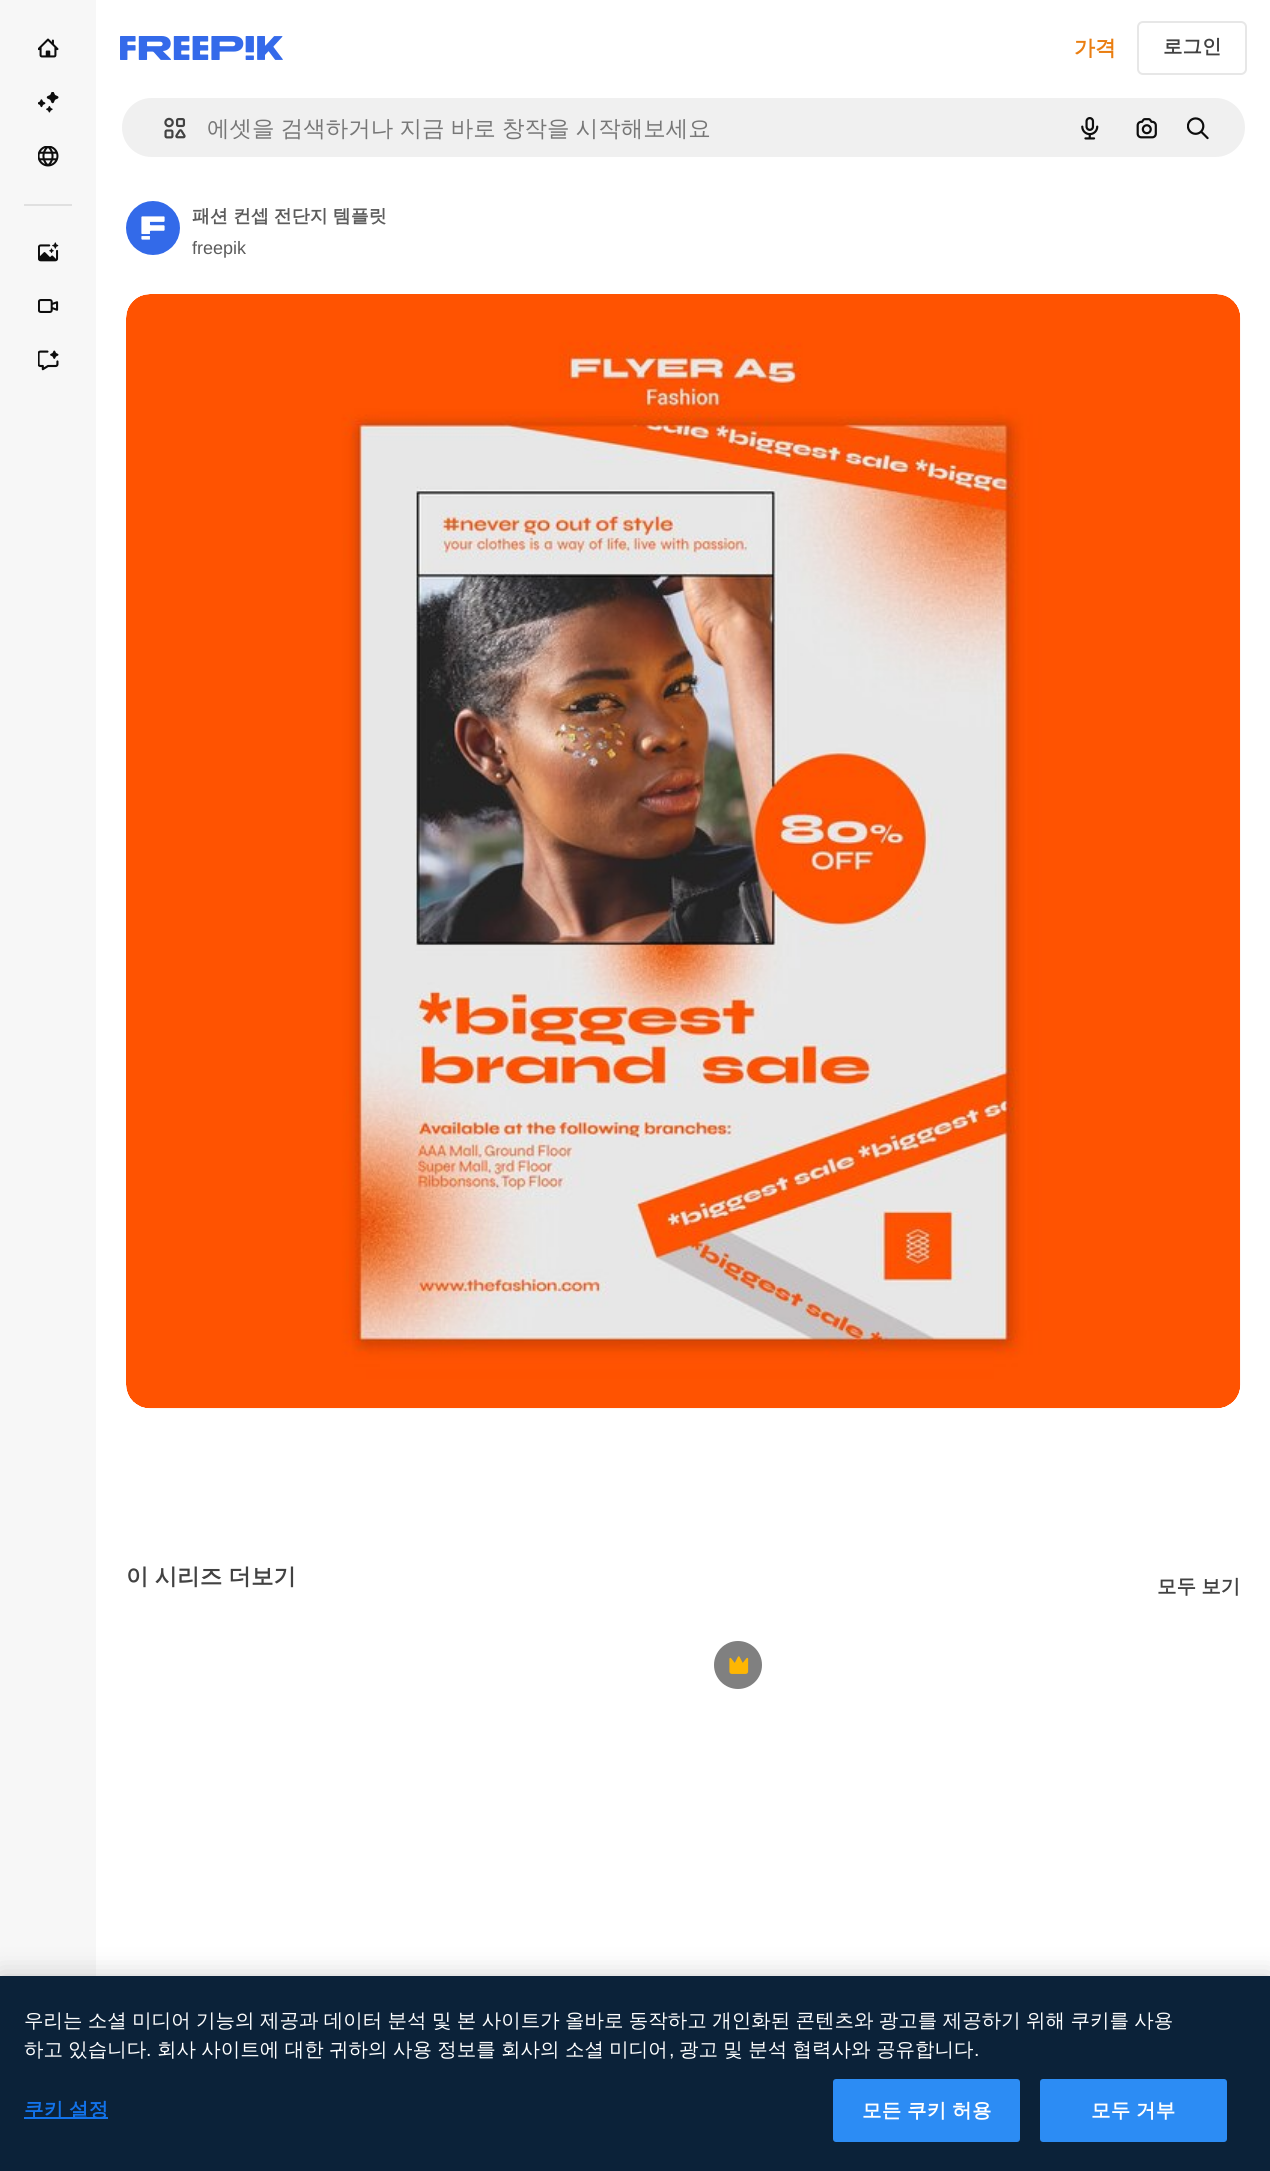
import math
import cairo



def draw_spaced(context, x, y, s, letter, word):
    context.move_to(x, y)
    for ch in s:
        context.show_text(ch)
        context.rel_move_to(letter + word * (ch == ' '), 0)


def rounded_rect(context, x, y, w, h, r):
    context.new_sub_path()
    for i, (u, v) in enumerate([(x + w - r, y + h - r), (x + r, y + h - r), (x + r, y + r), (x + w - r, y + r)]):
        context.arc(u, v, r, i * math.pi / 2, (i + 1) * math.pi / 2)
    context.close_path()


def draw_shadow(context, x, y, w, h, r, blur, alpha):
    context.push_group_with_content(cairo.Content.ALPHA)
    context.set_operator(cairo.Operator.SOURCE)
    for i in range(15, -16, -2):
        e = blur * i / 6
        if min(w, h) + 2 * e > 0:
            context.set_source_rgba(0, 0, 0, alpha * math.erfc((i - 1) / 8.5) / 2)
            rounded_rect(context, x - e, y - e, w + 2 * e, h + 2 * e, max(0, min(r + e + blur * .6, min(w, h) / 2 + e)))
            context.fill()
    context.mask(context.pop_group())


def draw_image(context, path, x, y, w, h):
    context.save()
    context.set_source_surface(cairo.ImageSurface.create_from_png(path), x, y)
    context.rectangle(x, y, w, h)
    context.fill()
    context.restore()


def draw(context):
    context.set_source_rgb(1, 1, 1)
    context.paint()
    context.set_source_rgb(247 / 255, 247 / 255, 247 / 255)
    context.rectangle(0, 0, 96, 1976)
    context.fill()
    draw_image(context, "images/1.png", 38, 38, 21, 20)
    draw_image(context, "images/2.png", 38, 92, 21, 21)
    draw_image(context, "images/3.png", 38, 146, 21, 21)
    context.set_source_rgb(224 / 255, 224 / 255, 224 / 255)
    context.rectangle(24, 204, 48, 2)
    context.fill()
    draw_image(context, "images/4.png", 38, 242, 21, 20)
    draw_image(context, "images/5.png", 38, 299, 21, 14)
    draw_image(context, "images/6.png", 38, 350, 21, 21)
    draw_image(context, "images/7.png", 120, 36, 163, 24)
    rounded_rect(context, 1138, 22, 108, 52, 5)
    context.set_source_rgb(231 / 255, 231 / 255, 231 / 255)
    context.stroke()
    context.set_source_rgb(240 / 255, 240 / 255, 240 / 255)
    rounded_rect(context, 121, 97, 1125, 61, 30.5)
    context.fill_preserve()
    context.set_source_rgb(1, 1, 1)
    context.stroke()
    draw_image(context, "images/8.png", 164, 117, 22, 22)
    draw_image(context, "images/9.png", 1081, 117, 18, 23)
    draw_image(context, "images/10.png", 1136, 118, 21, 21)
    draw_image(context, "images/11.png", 1187, 117, 22, 23)
    draw_image(context, "images/12.png", 126, 201, 54, 54)
    draw_image(context, "images/13.png", 126, 294, 1115, 1115)
    context.set_source_rgb(128 / 255, 128 / 255, 128 / 255)
    context.arc(738, 1665, 24, 0, 2 * math.pi)
    context.fill()
    draw_image(context, "images/14.png", 729, 1656, 20, 18)
    context.set_source_rgb(0, 0, 0)
    draw_shadow(context, 0, 1976, 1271, 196, 0, 13.5, 0.2)
    context.set_source_rgb(11 / 255, 34 / 255, 57 / 255)
    context.rectangle(0, 1976, 1270, 195)
    context.fill()
    context.set_source_rgb(18 / 255, 115 / 255, 235 / 255)
    context.rectangle(24, 2117, 84, 2)
    context.fill()
    context.set_source_rgb(44 / 255, 140 / 255, 244 / 255)
    rounded_rect(context, 834, 2080, 185, 61, 2)
    context.fill_preserve()
    context.stroke()
    rounded_rect(context, 1041, 2080, 185, 61, 2)
    context.fill_preserve()
    context.stroke()
    context.select_font_face("WenQuanYi Zen Hei", cairo.FontSlant.NORMAL, cairo.FontWeight.BOLD)
    context.set_font_size(21)
    context.set_source_rgb(234 / 255, 126 / 255, 17 / 255)
    context.move_to(1074, 55)
    context.show_text("가격")
    context.set_font_size(19.5)
    context.set_source_rgb(66 / 255, 66 / 255, 66 / 255)
    context.move_to(1163, 53)
    context.show_text("로그인")
    context.select_font_face("WenQuanYi Zen Hei Medium")
    context.set_font_size(22.5)
    context.set_source_rgb(119 / 255, 119 / 255, 119 / 255)
    draw_spaced(context, 207, 136, "에셋을 검색하거나 지금 바로 창작을 시작해보세요", 0, -0.5)
    context.select_font_face("WenQuanYi Zen Hei", cairo.FontSlant.NORMAL, cairo.FontWeight.BOLD)
    context.set_font_size(18)
    context.set_source_rgb(92 / 255, 92 / 255, 92 / 255)
    draw_spaced(context, 192, 222, "패션 컨셉 전단지 템플릿", 0, -0.5)
    context.select_font_face("Liberation Sans")
    context.move_to(192, 254)
    context.show_text("freepik")
    context.select_font_face("WenQuanYi Zen Hei", cairo.FontSlant.NORMAL, cairo.FontWeight.BOLD)
    context.set_font_size(22.5)
    context.set_source_rgb(66 / 255, 66 / 255, 66 / 255)
    draw_spaced(context, 126, 1584, "이 시리즈 더보기", 0, -0.5)
    context.set_font_size(19.5)
    draw_spaced(context, 1157, 1593, "모두 보기", 0, -0.5)
    context.select_font_face("WenQuanYi Zen Hei Medium")
    context.set_source_rgb(1, 1, 1)
    draw_spaced(context, 24, 2027, "우리는 소셜 미디어 기능의 제공과 데이터 분석 및 본 사이트가 올바로 동작하고 개인화된 콘텐츠와 광고를 제공하기 위해 쿠키를 사용", 0, -0.5)
    draw_spaced(context, 24, 2056, "하고 있습니다", 0, -0.5)
    context.select_font_face("Liberation Sans")
    context.move_to(146, 2056)
    context.show_text(".")
    context.select_font_face("WenQuanYi Zen Hei Medium")
    draw_spaced(context, 157, 2056, "회사 사이트에 대한 귀하의 사용 정보를 회사의 소셜 미디어", 0, -0.5)
    context.select_font_face("Liberation Sans")
    context.move_to(669, 2056)
    context.show_text(",")
    context.select_font_face("WenQuanYi Zen Hei Medium")
    draw_spaced(context, 679, 2056, "광고 및 분석 협력사와 공유합니다", 0, -0.5)
    context.select_font_face("Liberation Sans")
    context.move_to(974, 2056)
    context.show_text(".")
    context.select_font_face("WenQuanYi Zen Hei", cairo.FontSlant.NORMAL, cairo.FontWeight.BOLD)
    context.set_source_rgb(18 / 255, 115 / 255, 235 / 255)
    draw_spaced(context, 24, 2116, "쿠키 설정", 0.25, -0.5)
    context.set_source_rgb(1, 1, 1)
    draw_spaced(context, 862, 2117, "모든 쿠키 허용", 0.25, -0.5)
    draw_spaced(context, 1091, 2117, "모두 거부", 0.25, -0.5)


surface = cairo.ImageSurface(cairo.Format.RGB24, 1270, 2171)
context = cairo.Context(surface)
options = cairo.FontOptions()
options.set_hint_metrics(cairo.HintMetrics.OFF)
options.set_hint_style(cairo.HintStyle.NONE)
context.set_font_options(options)
context.set_miter_limit(4)
draw(context)
surface.write_to_png("out.png")
